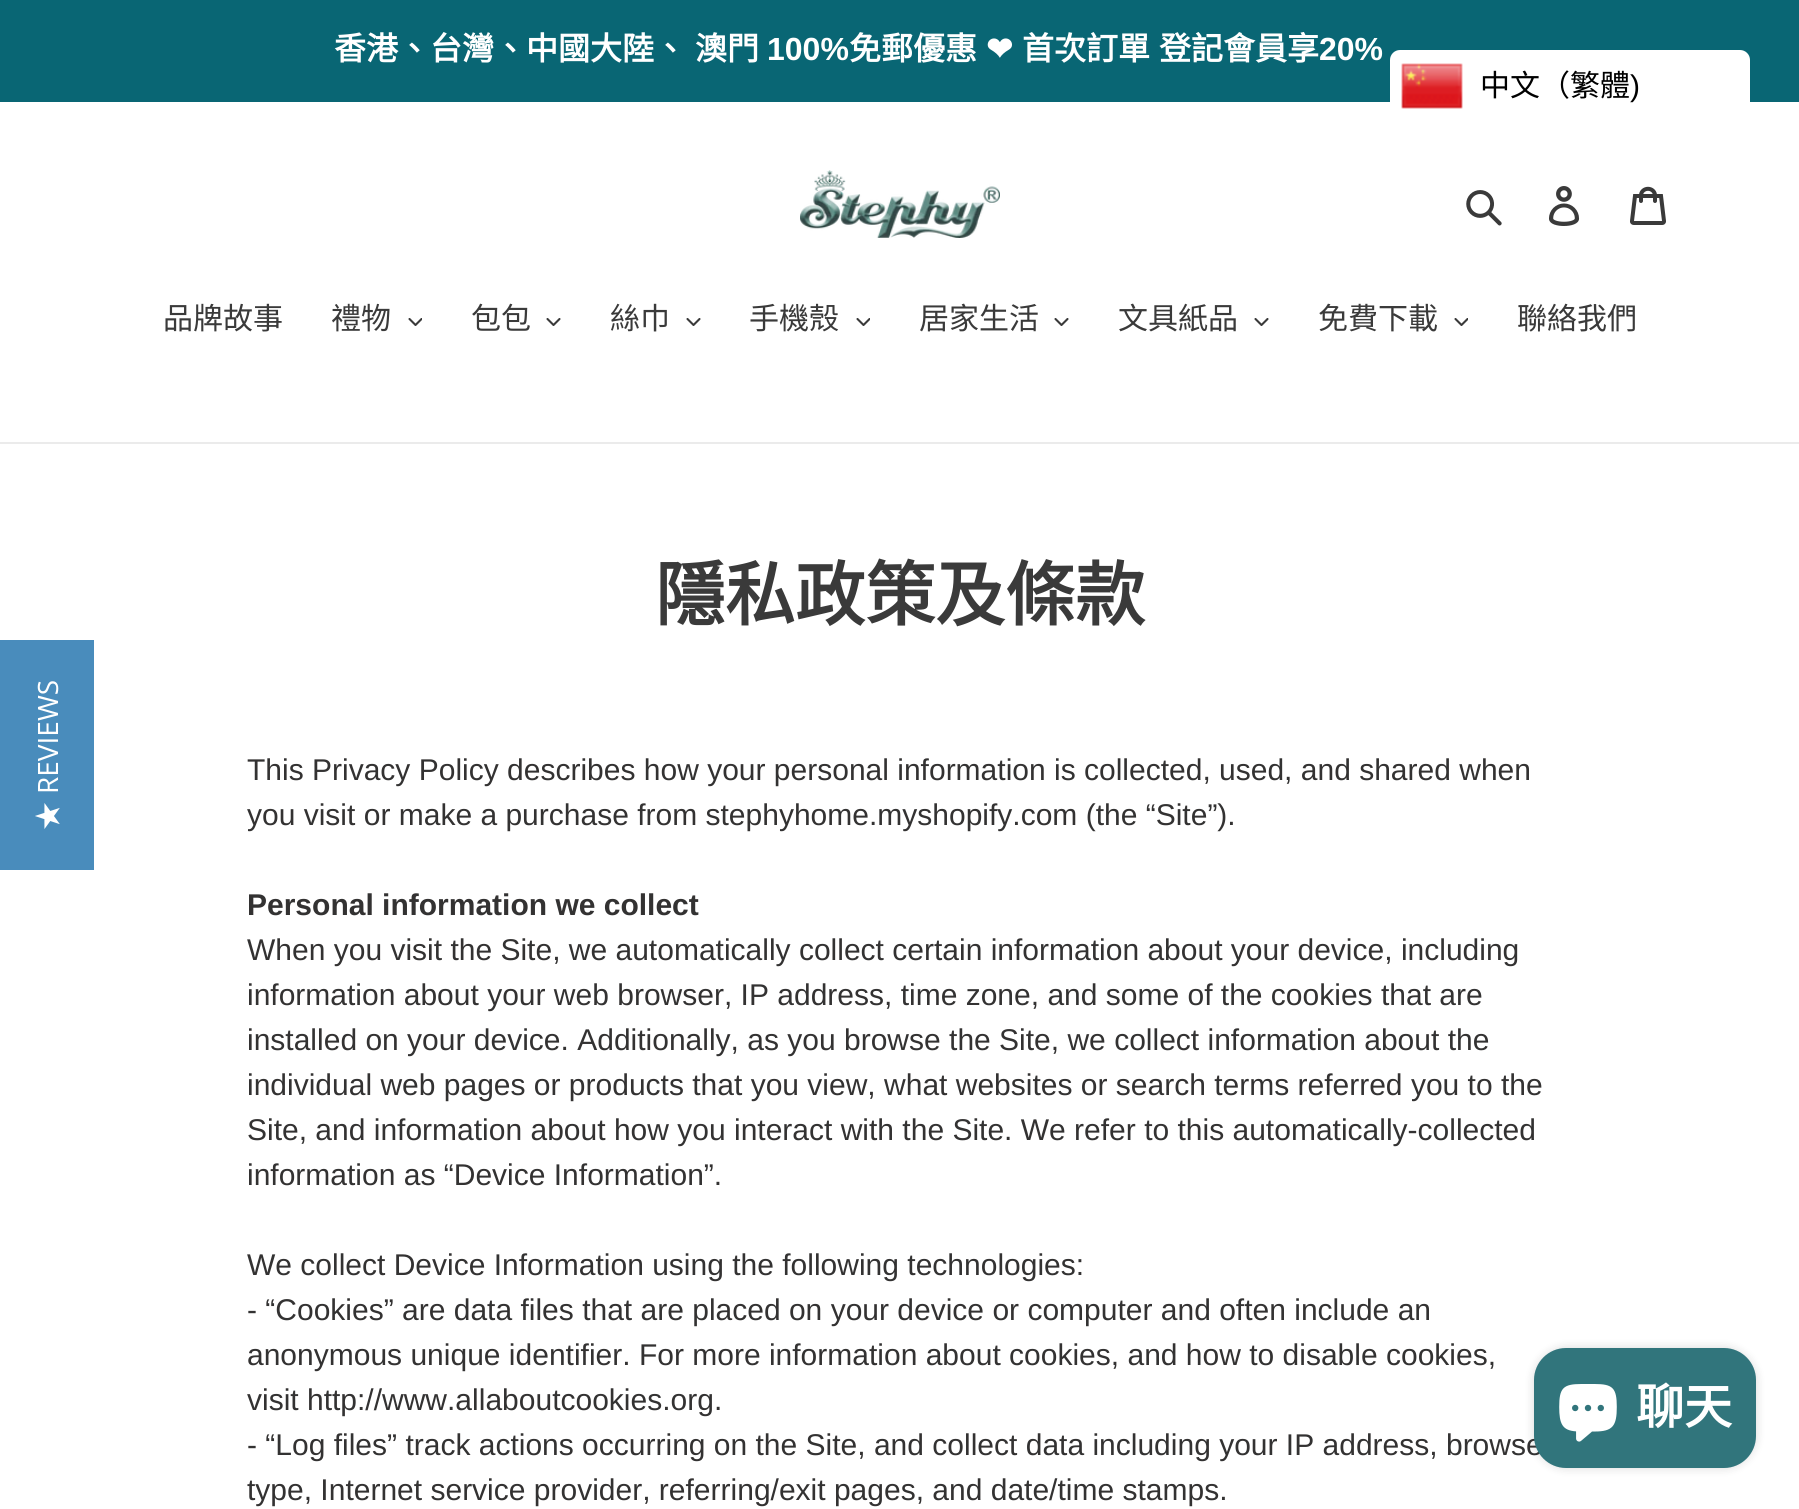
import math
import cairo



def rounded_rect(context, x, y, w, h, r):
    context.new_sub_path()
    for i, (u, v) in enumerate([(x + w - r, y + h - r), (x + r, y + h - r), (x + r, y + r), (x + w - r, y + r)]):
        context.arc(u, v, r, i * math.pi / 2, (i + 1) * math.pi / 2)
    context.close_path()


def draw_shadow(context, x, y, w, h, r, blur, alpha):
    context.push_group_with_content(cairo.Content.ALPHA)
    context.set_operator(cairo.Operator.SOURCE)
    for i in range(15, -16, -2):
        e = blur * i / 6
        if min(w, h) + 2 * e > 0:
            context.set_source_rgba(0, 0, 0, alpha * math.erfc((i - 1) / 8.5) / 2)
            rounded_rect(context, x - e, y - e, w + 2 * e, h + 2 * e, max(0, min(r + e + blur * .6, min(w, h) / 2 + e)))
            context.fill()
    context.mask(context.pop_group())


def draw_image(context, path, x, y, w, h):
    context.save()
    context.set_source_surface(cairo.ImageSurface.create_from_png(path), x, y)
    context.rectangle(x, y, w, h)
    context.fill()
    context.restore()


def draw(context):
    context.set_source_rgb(1, 1, 1)
    context.paint()
    context.set_source_rgb(9 / 255, 102 / 255, 116 / 255)
    context.rectangle(0, 0, 1799, 102)
    context.fill()
    draw_image(context, "images/1.png", 800, 170, 200, 68)
    draw_image(context, "images/2.png", 1466, 190, 36, 36)
    draw_image(context, "images/3.png", 1549, 186, 31, 40)
    draw_image(context, "images/4.png", 1630, 186, 36, 39)
    context.set_source_rgb(235 / 255, 235 / 255, 235 / 255)
    context.rectangle(0, 442, 1799, 2)
    context.fill()
    draw_image(context, "images/5.png", 408, 318, 14, 8)
    draw_image(context, "images/6.png", 546, 318, 15, 8)
    draw_image(context, "images/6.png", 686, 318, 15, 8)
    draw_image(context, "images/5.png", 856, 318, 14, 8)
    draw_image(context, "images/6.png", 1054, 318, 15, 8)
    draw_image(context, "images/6.png", 1254, 318, 15, 8)
    draw_image(context, "images/5.png", 1454, 318, 14, 8)
    context.set_source_rgb(1, 1, 1)
    rounded_rect(context, 1390, 50, 360, 72, 10)
    context.fill()
    draw_image(context, "images/7.png", 1401, 63, 62, 46)
    context.set_source_rgb(73 / 255, 140 / 255, 188 / 255)
    context.rectangle(0, 640, 94, 230)
    context.fill()
    context.set_source_rgb(0, 0, 0)
    draw_shadow(context, 1534, 1348, 222, 120, 32, 5, 0.15)
    context.select_font_face("Noto Sans CJK TC", cairo.FontSlant.NORMAL, cairo.FontWeight.BOLD)
    context.set_font_size(32)
    context.set_source_rgb(1, 1, 1)
    context.move_to(334, 60)
    context.show_text("香港、台灣、中國大陸、")
    context.move_to(695, 60)
    context.show_text("澳門")
    context.select_font_face("Liberation Sans", cairo.FontSlant.NORMAL, cairo.FontWeight.BOLD)
    context.move_to(767, 60)
    context.show_text("100%")
    context.select_font_face("Noto Sans CJK TC", cairo.FontSlant.NORMAL, cairo.FontWeight.BOLD)
    context.move_to(849, 60)
    context.show_text("免郵優惠")
    context.select_font_face("DejaVu Sans", cairo.FontSlant.NORMAL, cairo.FontWeight.BOLD)
    context.move_to(986, 60)
    context.show_text("❤")
    context.select_font_face("Noto Sans CJK TC", cairo.FontSlant.NORMAL, cairo.FontWeight.BOLD)
    context.move_to(1022, 60)
    context.show_text("首次訂單")
    context.move_to(1159, 60)
    context.show_text("登記會員享")
    context.select_font_face("Liberation Sans", cairo.FontSlant.NORMAL, cairo.FontWeight.BOLD)
    context.move_to(1319, 60)
    context.show_text("20%")
    context.select_font_face("Noto Sans CJK TC")
    context.set_font_size(30)
    context.set_source_rgb(58 / 255, 58 / 255, 58 / 255)
    context.move_to(163, 329)
    context.show_text("品牌故事")
    context.move_to(331, 329)
    context.show_text("禮物")
    context.move_to(471, 329)
    context.show_text("包包")
    context.move_to(610, 329)
    context.show_text("絲巾")
    context.move_to(749, 329)
    context.show_text("手機殼")
    context.move_to(919, 329)
    context.show_text("居家生活")
    context.move_to(1118, 329)
    context.show_text("文具紙品")
    context.move_to(1318, 329)
    context.show_text("免費下載")
    context.move_to(1517, 329)
    context.show_text("聯絡我們")
    context.set_source_rgb(0, 0, 0)
    context.move_to(1480, 96)
    context.show_text("中文（繁體")
    context.select_font_face("Liberation Sans")
    context.move_to(1630, 96)
    context.show_text(")")
    context.select_font_face("Open Sans")
    context.set_font_size(28)
    context.set_source_rgb(1, 1, 1)
    context.save()
    context.translate(58, 794)
    context.rotate(-90 * math.pi / 180)
    context.move_to(0, 0)
    context.show_text("REVIEWS")
    context.restore()
    context.select_font_face("Noto Sans CJK TC")
    context.save()
    context.translate(58, 830)
    context.rotate(-90 * math.pi / 180)
    context.move_to(0, 0)
    context.show_text("★")
    context.restore()
    context.select_font_face("Noto Sans CJK TC", cairo.FontSlant.NORMAL, cairo.FontWeight.BOLD)
    context.set_font_size(70)
    context.set_source_rgb(58 / 255, 58 / 255, 58 / 255)
    context.move_to(655, 620)
    context.show_text("隱私政策及條款")
    context.select_font_face("Liberation Sans")
    context.set_font_size(30)
    context.set_source_rgb(51 / 255, 50 / 255, 50 / 255)
    context.move_to(247, 780)
    context.show_text("This Privacy Policy describes how your personal information is collected, used, and shared when")
    context.move_to(247, 825)
    context.show_text("you visit or make a purchase from stephyhome.myshopify.com (the “Site”).")
    context.select_font_face("Liberation Sans", cairo.FontSlant.NORMAL, cairo.FontWeight.BOLD)
    context.move_to(247, 915)
    context.show_text("Personal information we collect")
    context.select_font_face("Liberation Sans")
    context.move_to(247, 960)
    context.show_text("When you visit the Site, we automatically collect certain information about your device, including")
    context.move_to(247, 1005)
    context.show_text("information about your web browser, IP address, time zone, and some of the cookies that are")
    context.move_to(247, 1050)
    context.show_text("installed on your device. Additionally, as you browse the Site, we collect information about the")
    context.move_to(247, 1095)
    context.show_text("individual web pages or products that you view, what websites or search terms referred you to the")
    context.move_to(247, 1140)
    context.show_text("Site, and information about how you interact with the Site. We refer to this automatically-collected")
    context.move_to(247, 1185)
    context.show_text("information as “Device Information”.")
    context.move_to(247, 1275)
    context.show_text("We collect Device Information using the following technologies:")
    context.move_to(247, 1320)
    context.show_text("- “Cookies” are data files that are placed on your device or computer and often include an")
    context.move_to(247, 1365)
    context.show_text("anonymous unique identifier. For more information about cookies, and how to disable cookies,")
    context.move_to(247, 1410)
    context.show_text("visit http://www.allaboutcookies.org.")
    context.move_to(247, 1455)
    context.show_text("- “Log files” track actions occurring on the Site, and collect data including your IP address, browse")
    context.move_to(247, 1500)
    context.show_text("type, Internet service provider, referring/exit pages, and date/time stamps.")
    context.set_source_rgb(49 / 255, 117 / 255, 124 / 255)
    rounded_rect(context, 1534, 1348, 222, 120, 32)
    context.fill()
    draw_image(context, "images/8.png", 1559, 1384, 58, 58)
    context.select_font_face("Noto Sans CJK TC", cairo.FontSlant.NORMAL, cairo.FontWeight.BOLD)
    context.set_font_size(48)
    context.set_source_rgb(1, 1, 1)
    context.move_to(1636, 1424)
    context.show_text("聊天")


surface = cairo.ImageSurface(cairo.Format.RGB24, 1799, 1509)
context = cairo.Context(surface)
options = cairo.FontOptions()
options.set_hint_metrics(cairo.HintMetrics.OFF)
options.set_hint_style(cairo.HintStyle.NONE)
context.set_font_options(options)
context.set_miter_limit(4)
draw(context)
surface.write_to_png("out.png")
